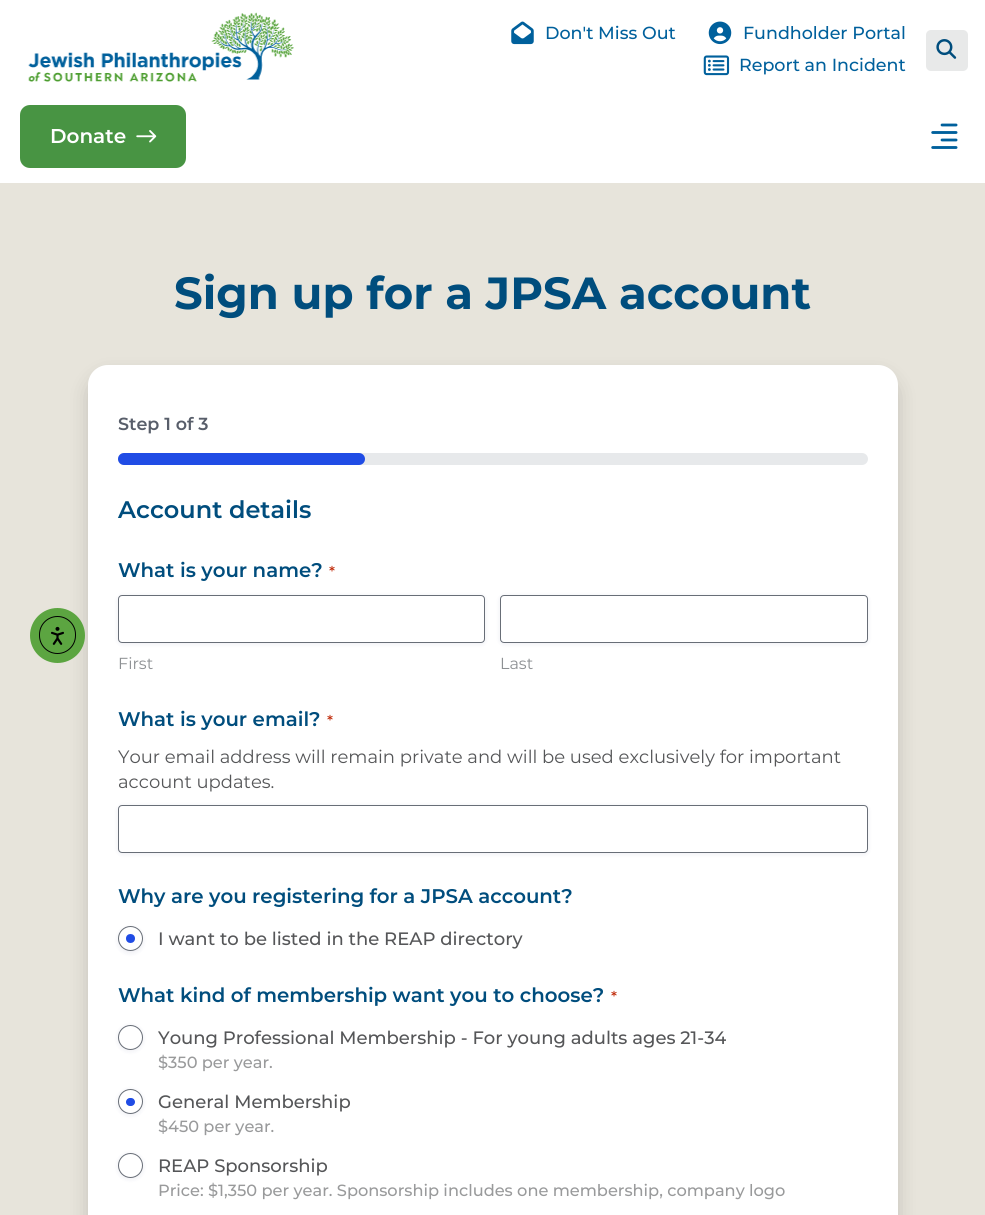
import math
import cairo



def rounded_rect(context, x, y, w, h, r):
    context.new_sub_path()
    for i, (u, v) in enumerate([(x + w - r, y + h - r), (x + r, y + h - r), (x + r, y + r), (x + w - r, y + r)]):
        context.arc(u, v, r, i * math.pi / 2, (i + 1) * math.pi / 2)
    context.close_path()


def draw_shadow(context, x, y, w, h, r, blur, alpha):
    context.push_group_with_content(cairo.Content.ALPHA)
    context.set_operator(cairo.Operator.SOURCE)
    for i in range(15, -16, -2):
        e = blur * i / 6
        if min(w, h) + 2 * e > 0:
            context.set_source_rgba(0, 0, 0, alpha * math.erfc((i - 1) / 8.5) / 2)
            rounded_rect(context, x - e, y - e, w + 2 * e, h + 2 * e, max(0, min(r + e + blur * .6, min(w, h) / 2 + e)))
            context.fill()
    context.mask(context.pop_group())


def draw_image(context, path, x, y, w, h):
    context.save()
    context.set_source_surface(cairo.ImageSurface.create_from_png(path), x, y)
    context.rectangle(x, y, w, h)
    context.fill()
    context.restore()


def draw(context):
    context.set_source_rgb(231 / 255, 228 / 255, 219 / 255)
    context.paint()
    context.set_source_rgb(1, 1, 1)
    context.rectangle(0, 0, 985, 183)
    context.fill()
    draw_image(context, "images/1.png", 28, 12, 266, 70)
    draw_image(context, "images/2.png", 511, 21, 23, 24)
    draw_image(context, "images/3.png", 708, 21, 24, 24)
    draw_image(context, "images/4.png", 703, 55, 27, 21)
    context.set_source_rgb(232 / 255, 233 / 255, 233 / 255)
    rounded_rect(context, 926, 30, 42, 41, 5)
    context.fill()
    draw_image(context, "images/5.png", 936, 39, 21, 20)
    context.set_source_rgb(72 / 255, 148 / 255, 67 / 255)
    rounded_rect(context, 20, 105, 166, 63, 10)
    context.fill()
    draw_image(context, "images/6.png", 136, 130, 21, 13)
    draw_image(context, "images/7.png", 931, 123, 27, 26)
    context.set_source_rgb(0, 0, 0)
    draw_shadow(context, 88, 375, 810, 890, 20, 10, 0.15)
    context.set_source_rgb(92 / 255, 165 / 255, 65 / 255)
    context.arc(57.5, 635.5, 27.5, 0, 2 * math.pi)
    context.fill()
    rounded_rect(context, 39.5, 616.5, 36, 37, 18)
    context.set_source_rgb(0, 0, 0)
    context.set_line_width(1)
    context.stroke()
    draw_image(context, "images/8.png", 51, 626, 13, 19)
    context.set_source_rgb(1, 1, 1)
    rounded_rect(context, 88, 365, 810, 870, 20)
    context.fill()
    context.set_source_rgb(231 / 255, 233 / 255, 235 / 255)
    rounded_rect(context, 118, 453, 750, 12, 6)
    context.fill()
    context.set_source_rgb(32 / 255, 76 / 255, 229 / 255)
    rounded_rect(context, 118, 453, 247, 12, 6)
    context.fill()
    context.set_source_rgb(18 / 255, 25 / 255, 97 / 255)
    draw_shadow(context, 118, 596, 367, 48, 4, 2.5, 0.08)
    context.set_source_rgb(1, 1, 1)
    rounded_rect(context, 118.5, 595.5, 366, 47, 3.5)
    context.fill_preserve()
    context.set_source_rgb(104 / 255, 110 / 255, 119 / 255)
    context.stroke()
    context.set_source_rgb(18 / 255, 25 / 255, 97 / 255)
    draw_shadow(context, 500, 596, 368, 48, 4, 2.5, 0.08)
    context.set_source_rgb(1, 1, 1)
    rounded_rect(context, 500.5, 595.5, 367, 47, 3.5)
    context.fill_preserve()
    context.set_source_rgb(104 / 255, 110 / 255, 119 / 255)
    context.stroke()
    context.set_source_rgb(18 / 255, 25 / 255, 97 / 255)
    draw_shadow(context, 118, 806, 750, 48, 4, 2.5, 0.08)
    context.set_source_rgb(1, 1, 1)
    rounded_rect(context, 118.5, 805.5, 749, 47, 3.5)
    context.fill_preserve()
    context.set_source_rgb(104 / 255, 110 / 255, 119 / 255)
    context.stroke()
    context.set_source_rgb(18 / 255, 25 / 255, 97 / 255)
    draw_shadow(context, 118, 928, 25, 25, 12.5, 2.5, 0.08)
    context.set_source_rgb(1, 1, 1)
    context.arc(130.5, 938.5, 12, 0, 2 * math.pi)
    context.fill_preserve()
    context.set_source_rgb(104 / 255, 110 / 255, 119 / 255)
    context.stroke()
    context.set_source_rgb(32 / 255, 76 / 255, 229 / 255)
    context.arc(130.5, 938.5, 4.5, 0, 2 * math.pi)
    context.fill()
    context.set_source_rgb(18 / 255, 25 / 255, 97 / 255)
    draw_shadow(context, 118, 1026, 25, 25, 12.5, 2.5, 0.08)
    context.set_source_rgb(1, 1, 1)
    context.arc(130.5, 1037.5, 12, 0, 2 * math.pi)
    context.fill_preserve()
    context.set_source_rgb(104 / 255, 110 / 255, 119 / 255)
    context.stroke()
    context.set_source_rgb(18 / 255, 25 / 255, 97 / 255)
    draw_shadow(context, 118, 1090, 25, 25, 12.5, 2.5, 0.08)
    context.set_source_rgb(1, 1, 1)
    context.arc(130.5, 1101.5, 12, 0, 2 * math.pi)
    context.fill_preserve()
    context.set_source_rgb(104 / 255, 110 / 255, 119 / 255)
    context.stroke()
    context.set_source_rgb(32 / 255, 76 / 255, 229 / 255)
    rounded_rect(context, 126, 1098, 9, 8, 4)
    context.fill()
    context.set_source_rgb(18 / 255, 25 / 255, 97 / 255)
    draw_shadow(context, 118, 1154, 25, 25, 12.5, 2.5, 0.08)
    context.set_source_rgb(1, 1, 1)
    context.arc(130.5, 1165.5, 12, 0, 2 * math.pi)
    context.fill_preserve()
    context.set_source_rgb(104 / 255, 110 / 255, 119 / 255)
    context.stroke()
    context.select_font_face("Montserrat Medium")
    context.set_font_size(17.5)
    context.set_source_rgb(0, 96 / 255, 156 / 255)
    context.move_to(545, 39)
    context.show_text("Don't Miss Out")
    context.move_to(743, 39)
    context.show_text("Fundholder Portal")
    context.move_to(739, 71)
    context.show_text("Report an Incident")
    context.select_font_face("Montserrat SemiBold")
    context.set_font_size(20)
    context.set_source_rgb(1, 1, 1)
    context.move_to(50, 143)
    context.show_text("Donate")
    context.select_font_face("Montserrat", cairo.FontSlant.NORMAL, cairo.FontWeight.BOLD)
    context.set_font_size(45)
    context.set_source_rgb(0, 77 / 255, 125 / 255)
    context.move_to(174, 309)
    context.show_text("Sign up for a JPSA account")
    context.select_font_face("Montserrat SemiBold")
    context.set_font_size(17.5)
    context.set_source_rgb(88 / 255, 94 / 255, 106 / 255)
    context.move_to(118, 430)
    context.show_text("Step 1 of 3")
    context.set_font_size(24)
    context.set_source_rgb(0, 77 / 255, 125 / 255)
    context.move_to(118, 518)
    context.show_text("Account details")
    context.set_font_size(19.75)
    context.move_to(118, 577)
    context.show_text("What is your name?")
    context.select_font_face("Montserrat Medium")
    context.set_font_size(15)
    context.set_source_rgb(192 / 255, 43 / 255, 10 / 255)
    context.move_to(329, 577)
    context.show_text("*")
    context.select_font_face("Montserrat")
    context.set_font_size(16)
    context.set_source_rgb(141 / 255, 144 / 255, 147 / 255)
    context.move_to(118, 669)
    context.show_text("First")
    context.move_to(500, 669)
    context.show_text("Last")
    context.select_font_face("Montserrat SemiBold")
    context.set_font_size(19.75)
    context.set_source_rgb(0, 77 / 255, 125 / 255)
    context.move_to(118, 726)
    context.show_text("What is your email?")
    context.select_font_face("Montserrat Medium")
    context.set_font_size(15)
    context.set_source_rgb(192 / 255, 43 / 255, 10 / 255)
    context.move_to(327, 726)
    context.show_text("*")
    context.select_font_face("Montserrat")
    context.set_font_size(18)
    context.set_source_rgb(85 / 255, 86 / 255, 88 / 255)
    context.move_to(118, 763)
    context.show_text("Your email address will remain private and will be used exclusively for important")
    context.move_to(118, 788)
    context.show_text("account updates.")
    context.select_font_face("Montserrat SemiBold")
    context.set_font_size(19.75)
    context.set_source_rgb(0, 77 / 255, 125 / 255)
    context.move_to(118, 903)
    context.show_text("Why are you registering for a JPSA account?")
    context.select_font_face("Montserrat Medium")
    context.set_font_size(18)
    context.set_source_rgb(85 / 255, 86 / 255, 88 / 255)
    context.move_to(158, 945)
    context.show_text("I want to be listed in the REAP directory")
    context.select_font_face("Montserrat SemiBold")
    context.set_font_size(19.75)
    context.set_source_rgb(0, 77 / 255, 125 / 255)
    context.move_to(118, 1002)
    context.show_text("What kind of membership want you to choose?")
    context.select_font_face("Montserrat Medium")
    context.set_font_size(15)
    context.set_source_rgb(192 / 255, 43 / 255, 10 / 255)
    context.move_to(611, 1002)
    context.show_text("*")
    context.set_font_size(18)
    context.set_source_rgb(85 / 255, 86 / 255, 88 / 255)
    context.move_to(158, 1044)
    context.show_text("Young Professional Membership - For young adults ages 21-34")
    context.set_font_size(16.2)
    context.set_source_rgb(153 / 255, 154 / 255, 155 / 255)
    context.move_to(158, 1068)
    context.show_text("$350 per year.")
    context.set_font_size(18)
    context.set_source_rgb(85 / 255, 86 / 255, 88 / 255)
    context.move_to(158, 1108)
    context.show_text("General Membership")
    context.set_font_size(16.2)
    context.set_source_rgb(153 / 255, 154 / 255, 155 / 255)
    context.move_to(158, 1132)
    context.show_text("$450 per year.")
    context.set_font_size(18)
    context.set_source_rgb(85 / 255, 86 / 255, 88 / 255)
    context.move_to(158, 1172)
    context.show_text("REAP Sponsorship")
    context.set_font_size(16.2)
    context.set_source_rgb(153 / 255, 154 / 255, 155 / 255)
    context.move_to(158, 1196)
    context.show_text("Price: $1,350 per year. Sponsorship includes one membership, company logo")


surface = cairo.ImageSurface(cairo.Format.RGB24, 985, 1215)
context = cairo.Context(surface)
options = cairo.FontOptions()
options.set_hint_metrics(cairo.HintMetrics.OFF)
options.set_hint_style(cairo.HintStyle.NONE)
context.set_font_options(options)
context.set_miter_limit(4)
draw(context)
surface.write_to_png("out.png")
